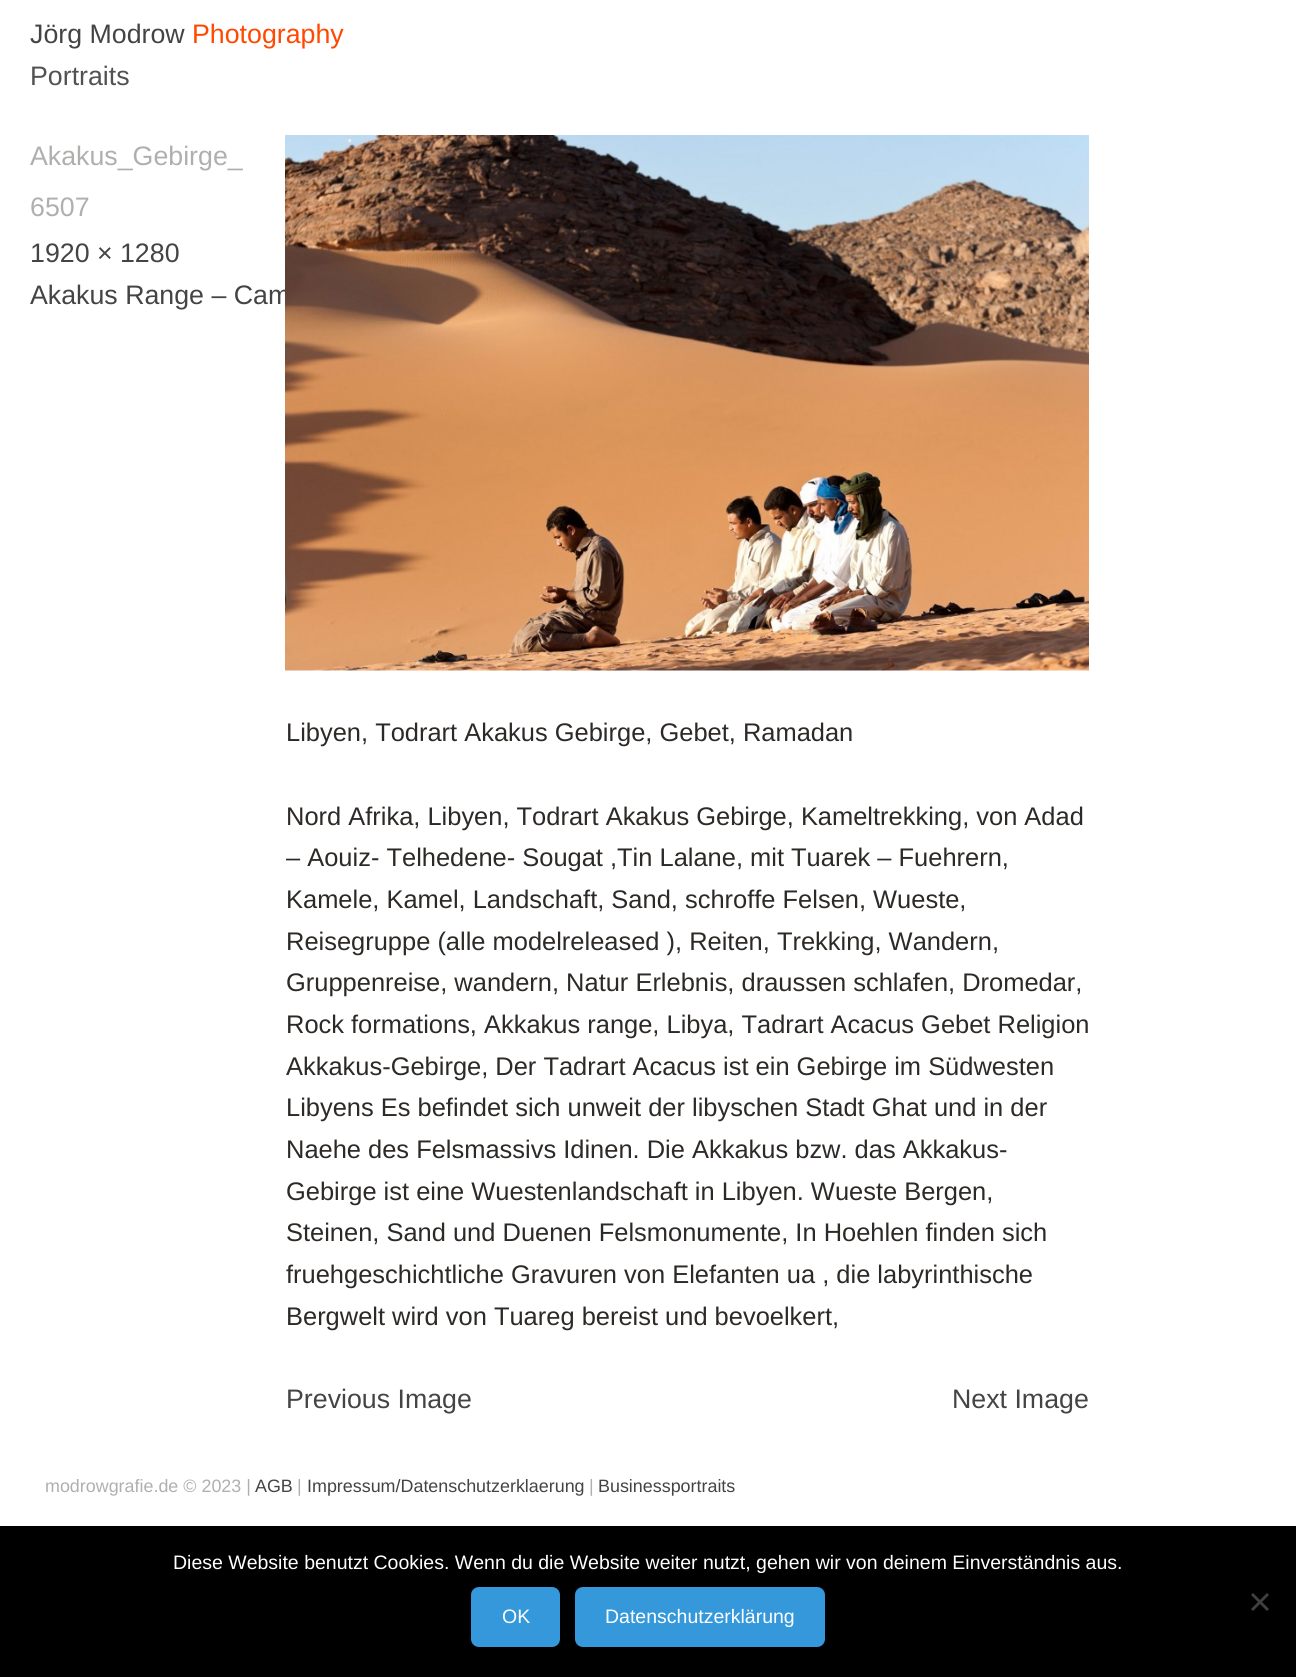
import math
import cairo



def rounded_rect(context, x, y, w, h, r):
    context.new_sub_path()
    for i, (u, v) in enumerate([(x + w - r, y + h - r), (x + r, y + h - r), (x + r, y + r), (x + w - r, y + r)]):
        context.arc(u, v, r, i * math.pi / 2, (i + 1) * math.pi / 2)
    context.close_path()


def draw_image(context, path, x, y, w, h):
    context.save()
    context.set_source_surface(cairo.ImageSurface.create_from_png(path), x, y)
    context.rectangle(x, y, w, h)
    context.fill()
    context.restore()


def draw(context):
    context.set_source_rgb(1, 1, 1)
    context.paint()
    context.set_source_rgb(0, 0, 0)
    context.rectangle(0, 1526, 1296, 151)
    context.fill()
    context.set_source_rgb(64 / 255, 64 / 255, 64 / 255)
    context.new_path()
    context.move_to(1267, 1593)
    context.line_to(1269, 1595)
    context.line_to(1253, 1611)
    context.line_to(1251, 1609)
    context.close_path()
    context.fill()
    context.new_path()
    context.move_to(1251, 1595)
    context.line_to(1253, 1593)
    context.line_to(1269, 1609)
    context.line_to(1267, 1611)
    context.close_path()
    context.fill()
    context.set_source_rgb(52 / 255, 152 / 255, 219 / 255)
    rounded_rect(context, 471, 1587, 89, 60, 8)
    context.fill()
    rounded_rect(context, 575, 1587, 250, 60, 8)
    context.fill()
    context.select_font_face("Liberation Sans")
    context.set_font_size(26.75)
    context.set_source_rgb(68 / 255, 68 / 255, 68 / 255)
    context.move_to(30, 43)
    context.show_text("Jörg Modrow")
    context.set_source_rgb(1, 72 / 255, 0)
    context.move_to(192, 43)
    context.show_text("Photography")
    context.set_source_rgb(82 / 255, 82 / 255, 82 / 255)
    context.move_to(30, 85)
    context.show_text("Portraits")
    context.set_source_rgb(175 / 255, 176 / 255, 174 / 255)
    context.move_to(30, 165)
    context.show_text("Akakus_Gebirge_")
    context.move_to(30, 216)
    context.show_text("6507")
    context.set_source_rgb(68 / 255, 68 / 255, 68 / 255)
    context.move_to(30, 262)
    context.show_text("1920 × 1280")
    context.move_to(30, 304)
    context.show_text("Akakus Range – Cam")
    draw_image(context, "images/1.png", 285, 135, 804, 536)
    context.set_source_rgb(238 / 255, 240 / 255, 243 / 255)
    context.move_to(346, 142)
    context.show_text(".")
    context.set_font_size(25.45)
    context.set_source_rgb(45 / 255, 41 / 255, 38 / 255)
    context.move_to(286, 741)
    context.show_text("Libyen, Todrart Akakus Gebirge, Gebet, Ramadan")
    context.move_to(286, 825)
    context.show_text("Nord Afrika, Libyen, Todrart Akakus Gebirge, Kameltrekking, von Adad")
    context.move_to(286, 866)
    context.show_text("– Aouiz- Telhedene- Sougat ,Tin Lalane, mit Tuarek – Fuehrern,")
    context.move_to(286, 908)
    context.show_text("Kamele, Kamel, Landschaft, Sand, schroffe Felsen, Wueste,")
    context.move_to(286, 950)
    context.show_text("Reisegruppe (alle modelreleased ), Reiten, Trekking, Wandern,")
    context.move_to(286, 991)
    context.show_text("Gruppenreise, wandern, Natur Erlebnis, draussen schlafen, Dromedar,")
    context.move_to(286, 1033)
    context.show_text("Rock formations, Akkakus range, Libya, Tadrart Acacus Gebet Religion")
    context.move_to(286, 1075)
    context.show_text("Akkakus-Gebirge, Der Tadrart Acacus ist ein Gebirge im Südwesten")
    context.move_to(286, 1116)
    context.show_text("Libyens Es befindet sich unweit der libyschen Stadt Ghat und in der")
    context.move_to(286, 1158)
    context.show_text("Naehe des Felsmassivs Idinen. Die Akkakus bzw. das Akkakus-")
    context.move_to(286, 1200)
    context.show_text("Gebirge ist eine Wuestenlandschaft in Libyen. Wueste Bergen,")
    context.move_to(286, 1241)
    context.show_text("Steinen, Sand und Duenen Felsmonumente, In Hoehlen finden sich")
    context.move_to(286, 1283)
    context.show_text("fruehgeschichtliche Gravuren von Elefanten ua , die labyrinthische")
    context.move_to(286, 1325)
    context.show_text("Bergwelt wird von Tuareg bereist und bevoelkert,")
    context.set_font_size(26.75)
    context.set_source_rgb(68 / 255, 68 / 255, 68 / 255)
    context.move_to(286, 1408)
    context.show_text("Previous Image")
    context.move_to(952, 1408)
    context.show_text("Next Image")
    context.set_font_size(17.9)
    context.set_source_rgb(175 / 255, 176 / 255, 174 / 255)
    context.move_to(45, 1492)
    context.show_text("modrowgrafie.de © 2023 |")
    context.set_source_rgb(68 / 255, 68 / 255, 68 / 255)
    context.move_to(255, 1492)
    context.show_text("AGB")
    context.set_source_rgb(175 / 255, 176 / 255, 174 / 255)
    context.move_to(297, 1492)
    context.show_text("|")
    context.set_source_rgb(68 / 255, 68 / 255, 68 / 255)
    context.move_to(307, 1492)
    context.show_text("Impressum/Datenschutzerklaerung")
    context.set_source_rgb(175 / 255, 176 / 255, 174 / 255)
    context.move_to(589, 1492)
    context.show_text("|")
    context.set_source_rgb(68 / 255, 68 / 255, 68 / 255)
    context.move_to(598, 1492)
    context.show_text("Businessportraits")
    context.set_font_size(19.5)
    context.set_source_rgb(1, 1, 1)
    context.move_to(173, 1569)
    context.show_text("Diese Website benutzt Cookies. Wenn du die Website weiter nutzt, gehen wir von deinem Einverständnis aus.")
    context.move_to(502, 1623)
    context.show_text("OK")
    context.move_to(605, 1623)
    context.show_text("Datenschutzerklärung")


surface = cairo.ImageSurface(cairo.Format.RGB24, 1296, 1677)
context = cairo.Context(surface)
options = cairo.FontOptions()
options.set_hint_metrics(cairo.HintMetrics.OFF)
options.set_hint_style(cairo.HintStyle.NONE)
context.set_font_options(options)
context.set_miter_limit(4)
draw(context)
surface.write_to_png("out.png")
